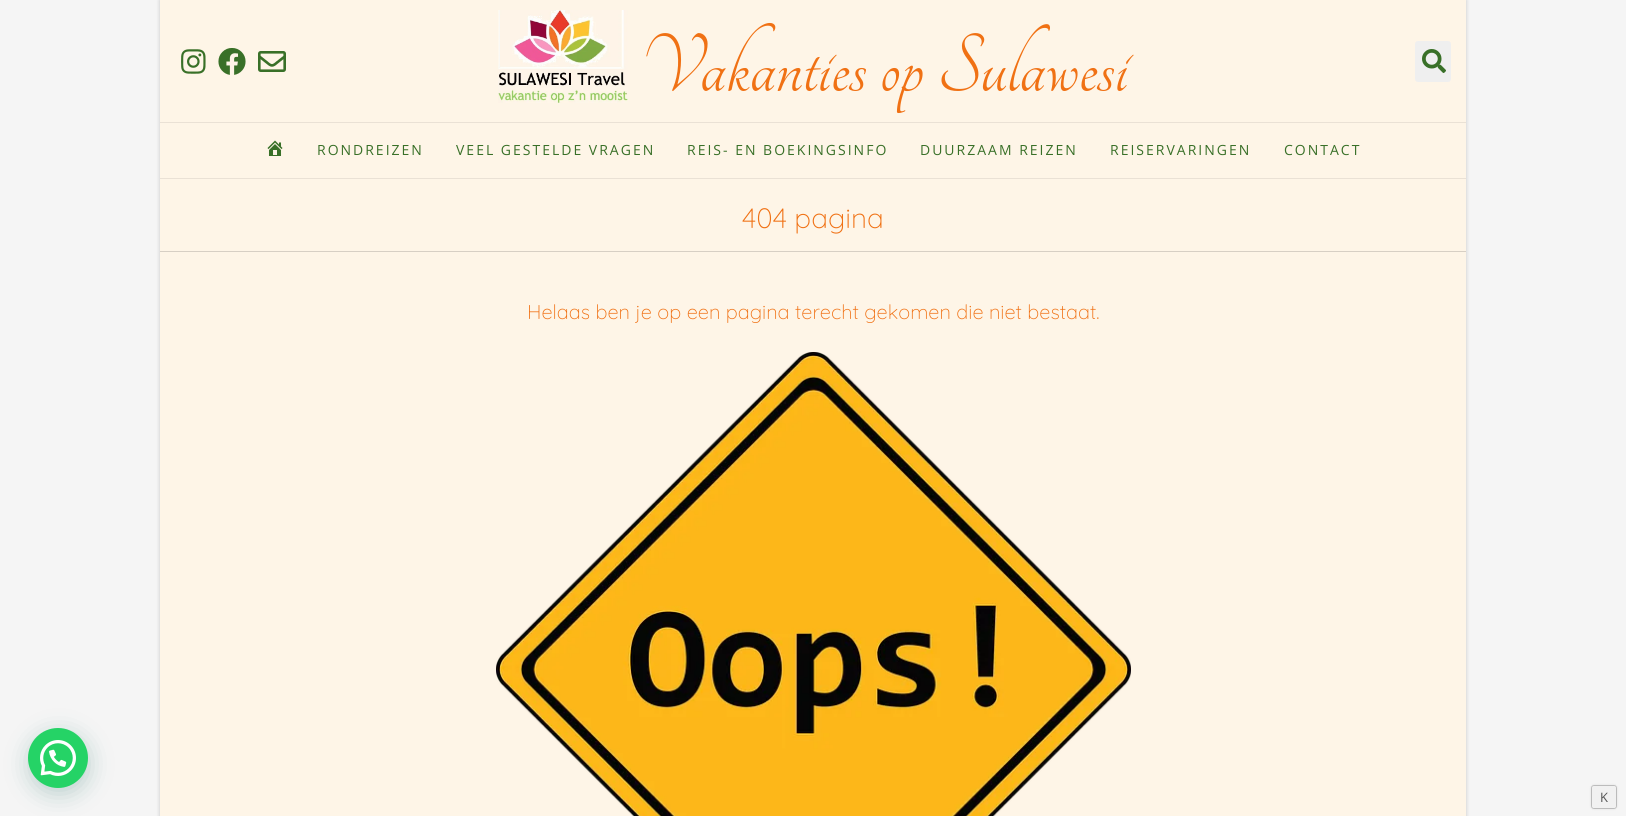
import math
import cairo



def draw_spaced(context, x, y, s, letter, word):
    context.move_to(x, y)
    for ch in s:
        context.show_text(ch)
        context.rel_move_to(letter + word * (ch == ' '), 0)


def rounded_rect(context, x, y, w, h, r):
    context.new_sub_path()
    for i, (u, v) in enumerate([(x + w - r, y + h - r), (x + r, y + h - r), (x + r, y + r), (x + w - r, y + r)]):
        context.arc(u, v, r, i * math.pi / 2, (i + 1) * math.pi / 2)
    context.close_path()


def draw_shadow(context, x, y, w, h, r, blur, alpha):
    context.push_group_with_content(cairo.Content.ALPHA)
    context.set_operator(cairo.Operator.SOURCE)
    for i in range(15, -16, -2):
        e = blur * i / 6
        if min(w, h) + 2 * e > 0:
            context.set_source_rgba(0, 0, 0, alpha * math.erfc((i - 1) / 8.5) / 2)
            rounded_rect(context, x - e, y - e, w + 2 * e, h + 2 * e, max(0, min(r + e + blur * .6, min(w, h) / 2 + e)))
            context.fill()
    context.mask(context.pop_group())


def draw_image(context, path, x, y, w, h):
    context.save()
    context.set_source_surface(cairo.ImageSurface.create_from_png(path), x, y)
    context.rectangle(x, y, w, h)
    context.fill()
    context.restore()


def draw(context):
    context.set_source_rgb(245 / 255, 245 / 255, 245 / 255)
    context.paint()
    context.set_source_rgb(0, 0, 0)
    draw_shadow(context, 160, 0, 1306, 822, 0, 2, 0.2)
    context.set_source_rgb(254 / 255, 245 / 255, 231 / 255)
    context.rectangle(160, 0, 1306, 251)
    context.fill()
    draw_image(context, "images/1.png", 181, 49, 25, 25)
    draw_image(context, "images/2.png", 218, 48, 28, 27)
    draw_image(context, "images/3.png", 258, 51, 28, 21)
    draw_image(context, "images/4.png", 498, 10, 130, 93)
    context.set_source_rgb(239 / 255, 239 / 255, 239 / 255)
    rounded_rect(context, 1415, 41, 36, 41, 3)
    context.fill()
    draw_image(context, "images/5.png", 1422, 49, 24, 24)
    context.set_source_rgb(234 / 255, 225 / 255, 213 / 255)
    context.rectangle(160, 122, 1306, 1)
    context.fill()
    context.rectangle(160, 178, 1306, 1)
    context.fill()
    draw_image(context, "images/6.png", 267, 140, 16, 16)
    context.set_source_rgb(215 / 255, 207 / 255, 196 / 255)
    context.rectangle(160, 251, 1306, 1)
    context.fill()
    context.set_source_rgb(254 / 255, 245 / 255, 231 / 255)
    context.rectangle(160, 252, 1306, 564)
    context.fill()
    draw_image(context, "images/7.png", 496, 352, 635, 464)
    context.set_source_rgb(7 / 255, 94 / 255, 84 / 255)
    draw_shadow(context, 29, 734, 60, 60, 30, 12, 0.24)
    context.set_source_rgb(37 / 255, 211 / 255, 102 / 255)
    context.arc(58, 758, 30, 0, 2 * math.pi)
    context.fill()
    draw_image(context, "images/8.png", 40, 740, 36, 36)
    context.set_source_rgb(0, 0, 0)
    draw_shadow(context, 1592, 786, 24, 22, 2, 1.5, 0.18)
    rounded_rect(context, 1591.5, 785.5, 25, 23, 2.5)
    context.set_source_rgba(0, 0, 0, 0.18)
    context.set_line_width(1)
    context.stroke()
    context.set_source_rgb(241 / 255, 241 / 255, 241 / 255)
    rounded_rect(context, 1592, 786, 24, 22, 2)
    context.fill()
    context.select_font_face("Tangerine")
    context.set_font_size(90)
    context.set_source_rgb(240 / 255, 113 / 255, 20 / 255)
    context.move_to(640, 91)
    context.show_text("Vakanties op Sulawesi")
    context.select_font_face("Open Sans")
    context.set_font_size(14)
    context.set_source_rgb(57 / 255, 112 / 255, 40 / 255)
    draw_spaced(context, 317, 155, "RONDREIZEN", 2, 0)
    draw_spaced(context, 456, 155, "VEEL GESTELDE VRAGEN", 2, 0)
    draw_spaced(context, 687, 155, "REIS- EN BOEKINGSINFO", 2, 0)
    draw_spaced(context, 920, 155, "DUURZAAM REIZEN", 2, 0)
    draw_spaced(context, 1110, 155, "REISERVARINGEN", 2, 0)
    draw_spaced(context, 1284, 155, "CONTACT", 2, 0)
    context.select_font_face("Quicksand Light")
    context.set_font_size(28)
    context.set_source_rgb(240 / 255, 113 / 255, 20 / 255)
    context.move_to(742, 228)
    context.show_text("404 pagina")
    context.set_font_size(20)
    context.move_to(527, 319)
    context.show_text("Helaas ben je op een pagina terecht gekomen die niet bestaat.")
    context.select_font_face("Open Sans")
    context.set_font_size(13)
    context.set_source_rgb(84 / 255, 84 / 255, 84 / 255)
    context.move_to(1600, 802)
    context.show_text("K")


surface = cairo.ImageSurface(cairo.Format.RGB24, 1626, 816)
context = cairo.Context(surface)
options = cairo.FontOptions()
options.set_hint_metrics(cairo.HintMetrics.OFF)
options.set_hint_style(cairo.HintStyle.NONE)
context.set_font_options(options)
context.set_miter_limit(4)
draw(context)
surface.write_to_png("out.png")
